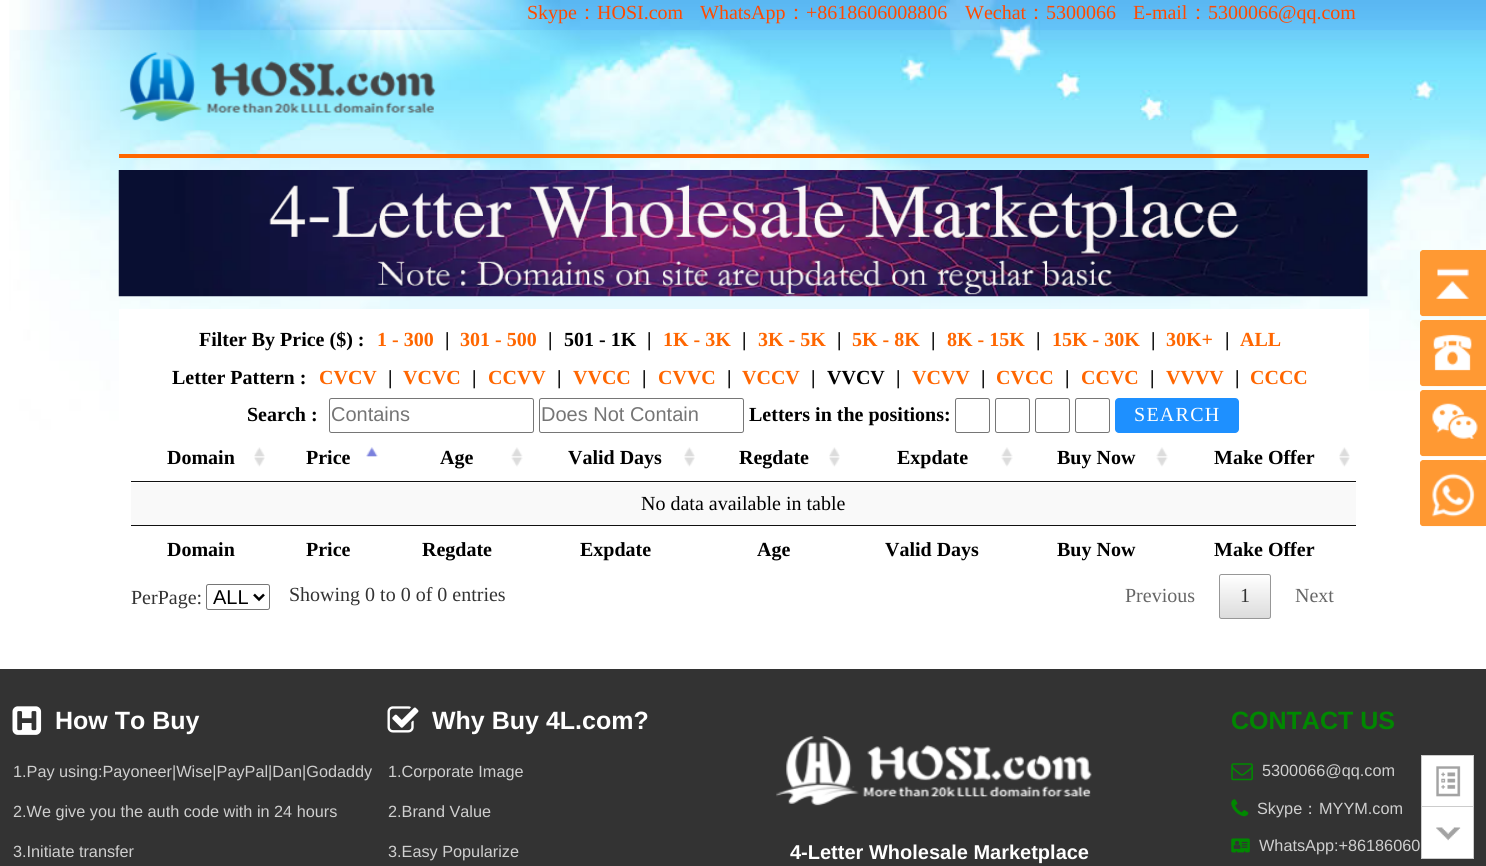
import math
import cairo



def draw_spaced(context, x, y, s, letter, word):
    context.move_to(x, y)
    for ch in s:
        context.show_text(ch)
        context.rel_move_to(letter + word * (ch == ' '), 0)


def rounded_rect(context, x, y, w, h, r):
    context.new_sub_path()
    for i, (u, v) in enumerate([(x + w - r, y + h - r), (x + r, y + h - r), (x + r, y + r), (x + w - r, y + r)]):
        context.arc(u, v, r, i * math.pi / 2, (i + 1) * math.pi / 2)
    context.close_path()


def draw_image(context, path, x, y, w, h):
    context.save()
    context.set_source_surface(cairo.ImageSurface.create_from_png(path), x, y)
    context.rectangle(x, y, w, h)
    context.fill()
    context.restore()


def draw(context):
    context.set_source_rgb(1, 1, 1)
    context.paint()
    draw_image(context, "images/1.png", 9, 0, 1477, 430)
    draw_image(context, "images/2.png", 120, 52, 316, 70)
    context.set_source_rgb(1, 102 / 255, 0)
    context.rectangle(119, 154, 1250, 4)
    context.fill()
    draw_image(context, "images/3.png", 118, 170, 1250, 127)
    context.set_source_rgb(1, 1, 1)
    context.rectangle(119, 309, 1250, 121)
    context.fill()
    rounded_rect(context, 329.5, 398.5, 204, 34, 2)
    context.set_source_rgb(118 / 255, 118 / 255, 118 / 255)
    context.set_line_width(1)
    context.stroke()
    rounded_rect(context, 539.5, 398.5, 204, 34, 2)
    context.stroke()
    rounded_rect(context, 955.5, 398.5, 34, 34, 2)
    context.stroke()
    rounded_rect(context, 995.5, 398.5, 34, 34, 2)
    context.stroke()
    rounded_rect(context, 1035.5, 398.5, 34, 34, 2)
    context.stroke()
    rounded_rect(context, 1075.5, 398.5, 34, 34, 2)
    context.stroke()
    context.set_source_rgb(30 / 255, 144 / 255, 1)
    rounded_rect(context, 1115, 398, 124, 35, 4)
    context.fill()
    draw_image(context, "images/4.png", 254, 447, 11, 20)
    context.set_source_rgb(17 / 255, 17 / 255, 17 / 255)
    context.rectangle(131, 481, 1225, 1)
    context.fill()
    draw_image(context, "images/5.png", 366, 447, 12, 10)
    draw_image(context, "images/6.png", 511, 447, 12, 20)
    draw_image(context, "images/4.png", 684, 447, 11, 20)
    draw_image(context, "images/7.png", 829, 447, 11, 20)
    draw_image(context, "images/8.png", 1001, 447, 12, 20)
    draw_image(context, "images/8.png", 1156, 447, 12, 20)
    draw_image(context, "images/7.png", 1339, 447, 11, 20)
    context.set_source_rgb(249 / 255, 249 / 255, 249 / 255)
    context.rectangle(131, 483, 1225, 42)
    context.fill()
    context.set_source_rgb(17 / 255, 17 / 255, 17 / 255)
    context.rectangle(131, 525, 1225, 1)
    context.fill()
    rounded_rect(context, 206.5, 584.5, 63, 25, 2)
    context.set_source_rgb(118 / 255, 118 / 255, 118 / 255)
    context.stroke()
    context.new_path()
    context.move_to(254, 594.5)
    context.line_to(259, 599.5)
    context.line_to(264, 594.5)
    context.set_source_rgb(0, 0, 0)
    context.set_line_width(2.5)
    context.stroke()
    context.save()
    rounded_rect(context, 1219, 574, 52, 45, 2.5)
    context.clip()
    gradient = cairo.LinearGradient(1245, 575, 1245, 618)
    gradient.add_color_stop_rgba(0, 1, 1, 1, 1)
    gradient.add_color_stop_rgba(1, 220 / 255, 220 / 255, 220 / 255, 1)
    context.set_source(gradient)
    context.rectangle(1219, 575, 52, 43)
    context.fill()
    context.restore()
    rounded_rect(context, 1219.5, 574.5, 51, 44, 2)
    context.set_source_rgb(151 / 255, 151 / 255, 151 / 255)
    context.set_line_width(1)
    context.stroke()
    context.set_source_rgb(1, 153 / 255, 51 / 255)
    rounded_rect(context, 1420, 250, 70, 66, 4)
    context.fill()
    draw_image(context, "images/9.png", 1420, 250, 64, 67)
    rounded_rect(context, 1420, 320, 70, 66, 4)
    context.fill()
    draw_image(context, "images/10.png", 1420, 320, 64, 67)
    rounded_rect(context, 1420, 390, 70, 66, 4)
    context.fill()
    draw_image(context, "images/11.png", 1420, 390, 64, 67)
    rounded_rect(context, 1420, 460, 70, 66, 4)
    context.fill()
    draw_image(context, "images/12.png", 1420, 460, 64, 67)
    context.set_source_rgb(51 / 255, 51 / 255, 51 / 255)
    context.rectangle(0, 669, 1486, 197)
    context.fill()
    draw_image(context, "images/13.png", 12, 706, 30, 29)
    draw_image(context, "images/14.png", 387, 706, 32, 27)
    draw_image(context, "images/15.png", 776, 736, 316, 70)
    draw_image(context, "images/16.png", 1231, 763, 22, 18)
    draw_image(context, "images/17.png", 1231, 799, 18, 18)
    draw_image(context, "images/18.png", 1231, 838, 19, 15)
    context.set_source_rgb(1, 1, 1)
    context.rectangle(1422, 756, 51, 50)
    context.fill()
    draw_image(context, "images/19.png", 1436, 766, 25, 31)
    context.rectangle(1421.5, 755.5, 52, 52)
    context.set_source_rgb(204 / 255, 204 / 255, 204 / 255)
    context.stroke()
    context.set_source_rgb(1, 1, 1)
    context.rectangle(1422, 807, 51, 51)
    context.fill()
    draw_image(context, "images/20.png", 1436, 827, 25, 14)
    context.rectangle(1421.5, 806.5, 52, 52)
    context.set_source_rgb(204 / 255, 204 / 255, 204 / 255)
    context.stroke()
    context.select_font_face("Liberation Serif")
    context.set_font_size(20)
    context.set_source_rgb(1, 74 / 255, 0)
    context.move_to(527, 19)
    context.show_text("Skype")
    context.select_font_face("WenQuanYi Zen Hei Medium")
    context.move_to(577, 19)
    context.show_text("：")
    context.select_font_face("Liberation Serif")
    context.move_to(597, 19)
    context.show_text("HOSI.com")
    context.move_to(700, 19)
    context.show_text("WhatsApp")
    context.select_font_face("WenQuanYi Zen Hei Medium")
    context.move_to(786, 19)
    context.show_text("：")
    context.select_font_face("Liberation Serif")
    context.move_to(806, 19)
    context.show_text("+8618606008806")
    context.move_to(965, 19)
    context.show_text("Wechat")
    context.select_font_face("WenQuanYi Zen Hei Medium")
    context.move_to(1026, 19)
    context.show_text("：")
    context.select_font_face("Liberation Serif")
    context.move_to(1046, 19)
    context.show_text("5300066")
    context.move_to(1133, 19)
    context.show_text("E-mail")
    context.select_font_face("WenQuanYi Zen Hei Medium")
    context.move_to(1188, 19)
    context.show_text("：")
    context.select_font_face("Liberation Serif")
    context.move_to(1208, 19)
    context.show_text("5300066@qq.com")
    context.select_font_face("Liberation Serif", cairo.FontSlant.NORMAL, cairo.FontWeight.BOLD)
    context.set_source_rgb(0, 0, 0)
    context.move_to(199, 346)
    context.show_text("Filter By Price ($) :")
    context.set_source_rgb(1, 102 / 255, 0)
    context.move_to(377, 346)
    context.show_text("1 - 300")
    context.set_source_rgb(0, 0, 0)
    context.move_to(445, 346)
    context.show_text("|")
    context.set_source_rgb(1, 102 / 255, 0)
    context.move_to(460, 346)
    context.show_text("301 - 500")
    context.set_source_rgb(0, 0, 0)
    context.move_to(548, 346)
    context.show_text("|")
    context.move_to(564, 346)
    context.show_text("501 - 1K")
    context.move_to(647, 346)
    context.show_text("|")
    context.set_source_rgb(1, 102 / 255, 0)
    context.move_to(663, 346)
    context.show_text("1K - 3K")
    context.set_source_rgb(0, 0, 0)
    context.move_to(742, 346)
    context.show_text("|")
    context.set_source_rgb(1, 102 / 255, 0)
    context.move_to(758, 346)
    context.show_text("3K - 5K")
    context.set_source_rgb(0, 0, 0)
    context.move_to(837, 346)
    context.show_text("|")
    context.set_source_rgb(1, 102 / 255, 0)
    context.move_to(852, 346)
    context.show_text("5K - 8K")
    context.set_source_rgb(0, 0, 0)
    context.move_to(931, 346)
    context.show_text("|")
    context.set_source_rgb(1, 102 / 255, 0)
    context.move_to(947, 346)
    context.show_text("8K - 15K")
    context.set_source_rgb(0, 0, 0)
    context.move_to(1036, 346)
    context.show_text("|")
    context.set_source_rgb(1, 102 / 255, 0)
    context.move_to(1052, 346)
    context.show_text("15K - 30K")
    context.set_source_rgb(0, 0, 0)
    context.move_to(1151, 346)
    context.show_text("|")
    context.set_source_rgb(1, 102 / 255, 0)
    context.move_to(1166, 346)
    context.show_text("30K+")
    context.set_source_rgb(0, 0, 0)
    context.move_to(1225, 346)
    context.show_text("|")
    context.set_source_rgb(1, 102 / 255, 0)
    context.move_to(1240, 346)
    context.show_text("ALL")
    context.set_source_rgb(0, 0, 0)
    context.move_to(172, 384)
    context.show_text("Letter Pattern :")
    context.set_source_rgb(1, 102 / 255, 0)
    context.move_to(319, 384)
    context.show_text("CVCV")
    context.set_source_rgb(0, 0, 0)
    context.move_to(388, 384)
    context.show_text("|")
    context.set_source_rgb(1, 102 / 255, 0)
    context.move_to(403, 384)
    context.show_text("VCVC")
    context.set_source_rgb(0, 0, 0)
    context.move_to(472, 384)
    context.show_text("|")
    context.set_source_rgb(1, 102 / 255, 0)
    context.move_to(488, 384)
    context.show_text("CCVV")
    context.set_source_rgb(0, 0, 0)
    context.move_to(557, 384)
    context.show_text("|")
    context.set_source_rgb(1, 102 / 255, 0)
    context.move_to(573, 384)
    context.show_text("VVCC")
    context.set_source_rgb(0, 0, 0)
    context.move_to(642, 384)
    context.show_text("|")
    context.set_source_rgb(1, 102 / 255, 0)
    context.move_to(658, 384)
    context.show_text("CVVC")
    context.set_source_rgb(0, 0, 0)
    context.move_to(727, 384)
    context.show_text("|")
    context.set_source_rgb(1, 102 / 255, 0)
    context.move_to(742, 384)
    context.show_text("VCCV")
    context.set_source_rgb(0, 0, 0)
    context.move_to(811, 384)
    context.show_text("|")
    context.move_to(827, 384)
    context.show_text("VVCV")
    context.move_to(896, 384)
    context.show_text("|")
    context.set_source_rgb(1, 102 / 255, 0)
    context.move_to(912, 384)
    context.show_text("VCVV")
    context.set_source_rgb(0, 0, 0)
    context.move_to(981, 384)
    context.show_text("|")
    context.set_source_rgb(1, 102 / 255, 0)
    context.move_to(996, 384)
    context.show_text("CVCC")
    context.set_source_rgb(0, 0, 0)
    context.move_to(1065, 384)
    context.show_text("|")
    context.set_source_rgb(1, 102 / 255, 0)
    context.move_to(1081, 384)
    context.show_text("CCVC")
    context.set_source_rgb(0, 0, 0)
    context.move_to(1150, 384)
    context.show_text("|")
    context.set_source_rgb(1, 102 / 255, 0)
    context.move_to(1166, 384)
    context.show_text("VVVV")
    context.set_source_rgb(0, 0, 0)
    context.move_to(1235, 384)
    context.show_text("|")
    context.set_source_rgb(1, 102 / 255, 0)
    context.move_to(1250, 384)
    context.show_text("CCCC")
    context.set_source_rgb(0, 0, 0)
    context.move_to(247, 421)
    context.show_text("Search :")
    context.select_font_face("Liberation Sans")
    context.set_source_rgb(117 / 255, 117 / 255, 117 / 255)
    context.move_to(331, 421)
    context.show_text("Contains")
    context.move_to(541, 421)
    context.show_text("Does Not Contain")
    context.select_font_face("Liberation Serif", cairo.FontSlant.NORMAL, cairo.FontWeight.BOLD)
    context.set_source_rgb(0, 0, 0)
    context.move_to(749, 421)
    context.show_text("Letters in the positions:")
    context.select_font_face("Liberation Serif")
    context.set_source_rgb(1, 1, 1)
    draw_spaced(context, 1134, 421, "SEARCH", 1.25, 0)
    context.select_font_face("Liberation Serif", cairo.FontSlant.NORMAL, cairo.FontWeight.BOLD)
    context.set_source_rgb(0, 0, 0)
    context.move_to(167, 464)
    context.show_text("Domain")
    context.move_to(306, 464)
    context.show_text("Price")
    context.move_to(440, 464)
    context.show_text("Age")
    context.move_to(568, 464)
    context.show_text("Valid Days")
    context.move_to(739, 464)
    context.show_text("Regdate")
    context.move_to(897, 464)
    context.show_text("Expdate")
    context.move_to(1057, 464)
    context.show_text("Buy Now")
    context.move_to(1214, 464)
    context.show_text("Make Offer")
    context.select_font_face("Liberation Serif")
    context.move_to(641, 510)
    context.show_text("No data available in table")
    context.select_font_face("Liberation Serif", cairo.FontSlant.NORMAL, cairo.FontWeight.BOLD)
    context.move_to(167, 556)
    context.show_text("Domain")
    context.move_to(306, 556)
    context.show_text("Price")
    context.move_to(422, 556)
    context.show_text("Regdate")
    context.move_to(580, 556)
    context.show_text("Expdate")
    context.move_to(757, 556)
    context.show_text("Age")
    context.move_to(885, 556)
    context.show_text("Valid Days")
    context.move_to(1057, 556)
    context.show_text("Buy Now")
    context.move_to(1214, 556)
    context.show_text("Make Offer")
    context.select_font_face("Liberation Serif")
    context.set_source_rgb(51 / 255, 51 / 255, 51 / 255)
    context.move_to(131, 604)
    context.show_text("PerPage:")
    context.select_font_face("Liberation Sans")
    context.set_source_rgb(0, 0, 0)
    context.move_to(213, 604)
    context.show_text("ALL")
    context.select_font_face("Liberation Serif")
    context.set_source_rgb(51 / 255, 51 / 255, 51 / 255)
    context.move_to(289, 601)
    context.show_text("Showing 0 to 0 of 0 entries")
    context.set_source_rgb(102 / 255, 102 / 255, 102 / 255)
    context.move_to(1125, 602)
    context.show_text("Previous")
    context.set_source_rgb(51 / 255, 51 / 255, 51 / 255)
    context.move_to(1240, 602)
    context.show_text("1")
    context.set_source_rgb(102 / 255, 102 / 255, 102 / 255)
    context.move_to(1295, 602)
    context.show_text("Next")
    context.select_font_face("Liberation Sans", cairo.FontSlant.NORMAL, cairo.FontWeight.BOLD)
    context.set_font_size(25)
    context.set_source_rgb(1, 1, 1)
    context.move_to(55, 729)
    context.show_text("How To Buy")
    context.select_font_face("Liberation Sans")
    context.set_font_size(16.25)
    context.set_source_rgb(207 / 255, 207 / 255, 207 / 255)
    context.move_to(13, 777)
    context.show_text("1.Pay using:Payoneer|Wise|PayPal|Dan|Godaddy")
    context.move_to(13, 817)
    context.show_text("2.We give you the auth code with in 24 hours")
    context.move_to(13, 857)
    context.show_text("3.Initiate transfer")
    context.select_font_face("Liberation Sans", cairo.FontSlant.NORMAL, cairo.FontWeight.BOLD)
    context.set_font_size(25)
    context.set_source_rgb(1, 1, 1)
    context.move_to(432, 729)
    context.show_text("Why Buy 4L.com?")
    context.select_font_face("Liberation Sans")
    context.set_font_size(16.25)
    context.set_source_rgb(207 / 255, 207 / 255, 207 / 255)
    context.move_to(388, 777)
    context.show_text("1.Corporate Image")
    context.move_to(388, 817)
    context.show_text("2.Brand Value")
    context.move_to(388, 857)
    context.show_text("3.Easy Popularize")
    context.select_font_face("Liberation Sans", cairo.FontSlant.NORMAL, cairo.FontWeight.BOLD)
    context.set_font_size(20)
    context.set_source_rgb(1, 1, 1)
    context.move_to(790, 859)
    context.show_text("4-Letter Wholesale Marketplace")
    context.set_font_size(25)
    context.set_source_rgb(0, 136 / 255, 0)
    context.move_to(1231, 729)
    context.show_text("CONTACT US")
    context.select_font_face("Liberation Sans")
    context.set_font_size(16.25)
    context.set_source_rgb(207 / 255, 207 / 255, 207 / 255)
    context.move_to(1262, 776)
    context.show_text("5300066@qq.com")
    context.move_to(1257, 814)
    context.show_text("Skype")
    context.select_font_face("WenQuanYi Zen Hei Medium")
    context.move_to(1302, 814)
    context.show_text("：")
    context.select_font_face("Liberation Sans")
    context.move_to(1319, 814)
    context.show_text("MYYM.com")
    context.move_to(1259, 851)
    context.show_text("WhatsApp:+86186060")


surface = cairo.ImageSurface(cairo.Format.RGB24, 1486, 866)
context = cairo.Context(surface)
options = cairo.FontOptions()
options.set_hint_metrics(cairo.HintMetrics.OFF)
options.set_hint_style(cairo.HintStyle.NONE)
context.set_font_options(options)
context.set_miter_limit(4)
draw(context)
surface.write_to_png("out.png")
